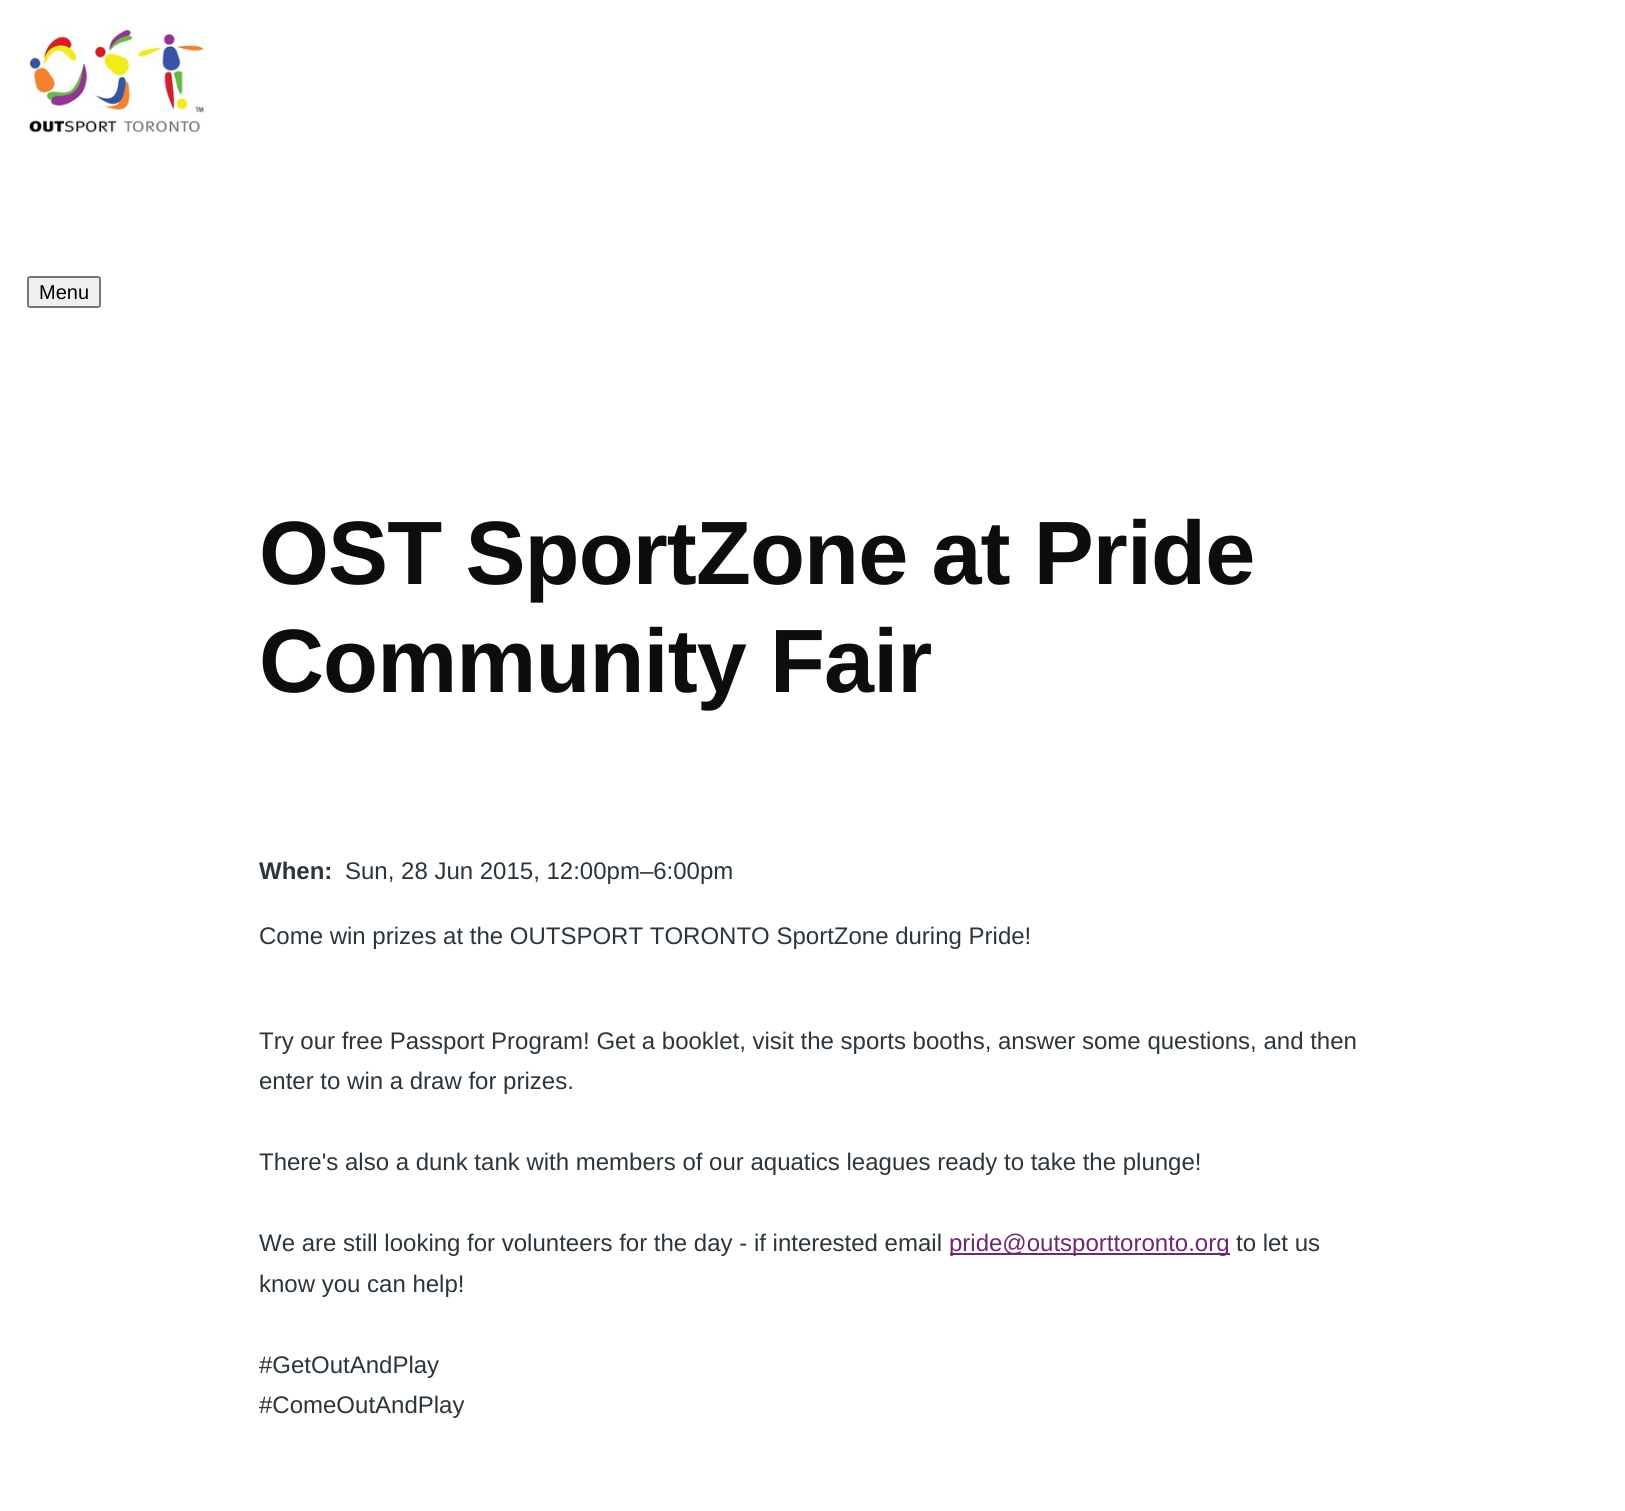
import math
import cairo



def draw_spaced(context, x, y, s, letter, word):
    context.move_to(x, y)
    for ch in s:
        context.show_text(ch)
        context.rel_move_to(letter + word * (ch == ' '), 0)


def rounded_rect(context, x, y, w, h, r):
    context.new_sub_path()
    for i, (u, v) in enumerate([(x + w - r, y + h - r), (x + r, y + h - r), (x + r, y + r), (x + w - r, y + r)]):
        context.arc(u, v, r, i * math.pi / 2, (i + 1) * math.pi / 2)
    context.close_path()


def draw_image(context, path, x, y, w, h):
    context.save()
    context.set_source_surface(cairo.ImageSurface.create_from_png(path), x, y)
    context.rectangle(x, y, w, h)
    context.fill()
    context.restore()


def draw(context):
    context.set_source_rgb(1, 1, 1)
    context.paint()
    draw_image(context, "images/1.png", 27, 27, 180, 106)
    context.set_source_rgb(239 / 255, 239 / 255, 239 / 255)
    rounded_rect(context, 28, 277, 72, 30, 2)
    context.fill_preserve()
    context.set_source_rgb(118 / 255, 118 / 255, 118 / 255)
    context.stroke()
    context.set_source_rgb(111 / 255, 39 / 255, 112 / 255)
    context.rectangle(950, 1253, 280, 2)
    context.fill()
    context.select_font_face("Liberation Sans")
    context.set_font_size(20)
    context.set_source_rgb(0, 0, 0)
    context.move_to(39, 299)
    context.show_text("Menu")
    context.select_font_face("Liberation Sans", cairo.FontSlant.NORMAL, cairo.FontWeight.BOLD)
    context.set_font_size(90)
    context.set_source_rgb(11 / 255, 13 / 255, 15 / 255)
    draw_spaced(context, 259, 584, "OST SportZone at Pride", -0.9, 0)
    draw_spaced(context, 259, 692, "Community Fair", -0.9, 0)
    context.set_font_size(24)
    context.set_source_rgb(43 / 255, 53 / 255, 59 / 255)
    context.move_to(259, 879)
    context.show_text("When:")
    context.select_font_face("Liberation Sans")
    context.move_to(345, 879)
    context.show_text("Sun, 28 Jun 2015, 12:00pm–6:00pm")
    context.move_to(259, 944)
    context.show_text("Come win prizes at the OUTSPORT TORONTO SportZone during Pride!")
    context.move_to(259, 1049)
    context.show_text("Try our free Passport Program! Get a booklet, visit the sports booths, answer some questions, and then")
    context.move_to(259, 1089)
    context.show_text("enter to win a draw for prizes.")
    context.move_to(259, 1170)
    context.show_text("There's also a dunk tank with members of our aquatics leagues ready to take the plunge!")
    context.move_to(259, 1251)
    context.show_text("We are still looking for volunteers for the day - if interested email")
    context.set_source_rgb(111 / 255, 39 / 255, 112 / 255)
    context.move_to(949, 1251)
    context.show_text("pride@outsporttoronto.org")
    context.set_source_rgb(43 / 255, 53 / 255, 59 / 255)
    context.move_to(1236, 1251)
    context.show_text("to let us")
    context.move_to(259, 1292)
    context.show_text("know you can help!")
    context.move_to(259, 1373)
    context.show_text("#GetOutAndPlay")
    context.move_to(259, 1413)
    context.show_text("#ComeOutAndPlay")


surface = cairo.ImageSurface(cairo.Format.RGB24, 1625, 1511)
context = cairo.Context(surface)
options = cairo.FontOptions()
options.set_hint_metrics(cairo.HintMetrics.OFF)
options.set_hint_style(cairo.HintStyle.NONE)
context.set_font_options(options)
context.set_miter_limit(4)
draw(context)
surface.write_to_png("out.png")
